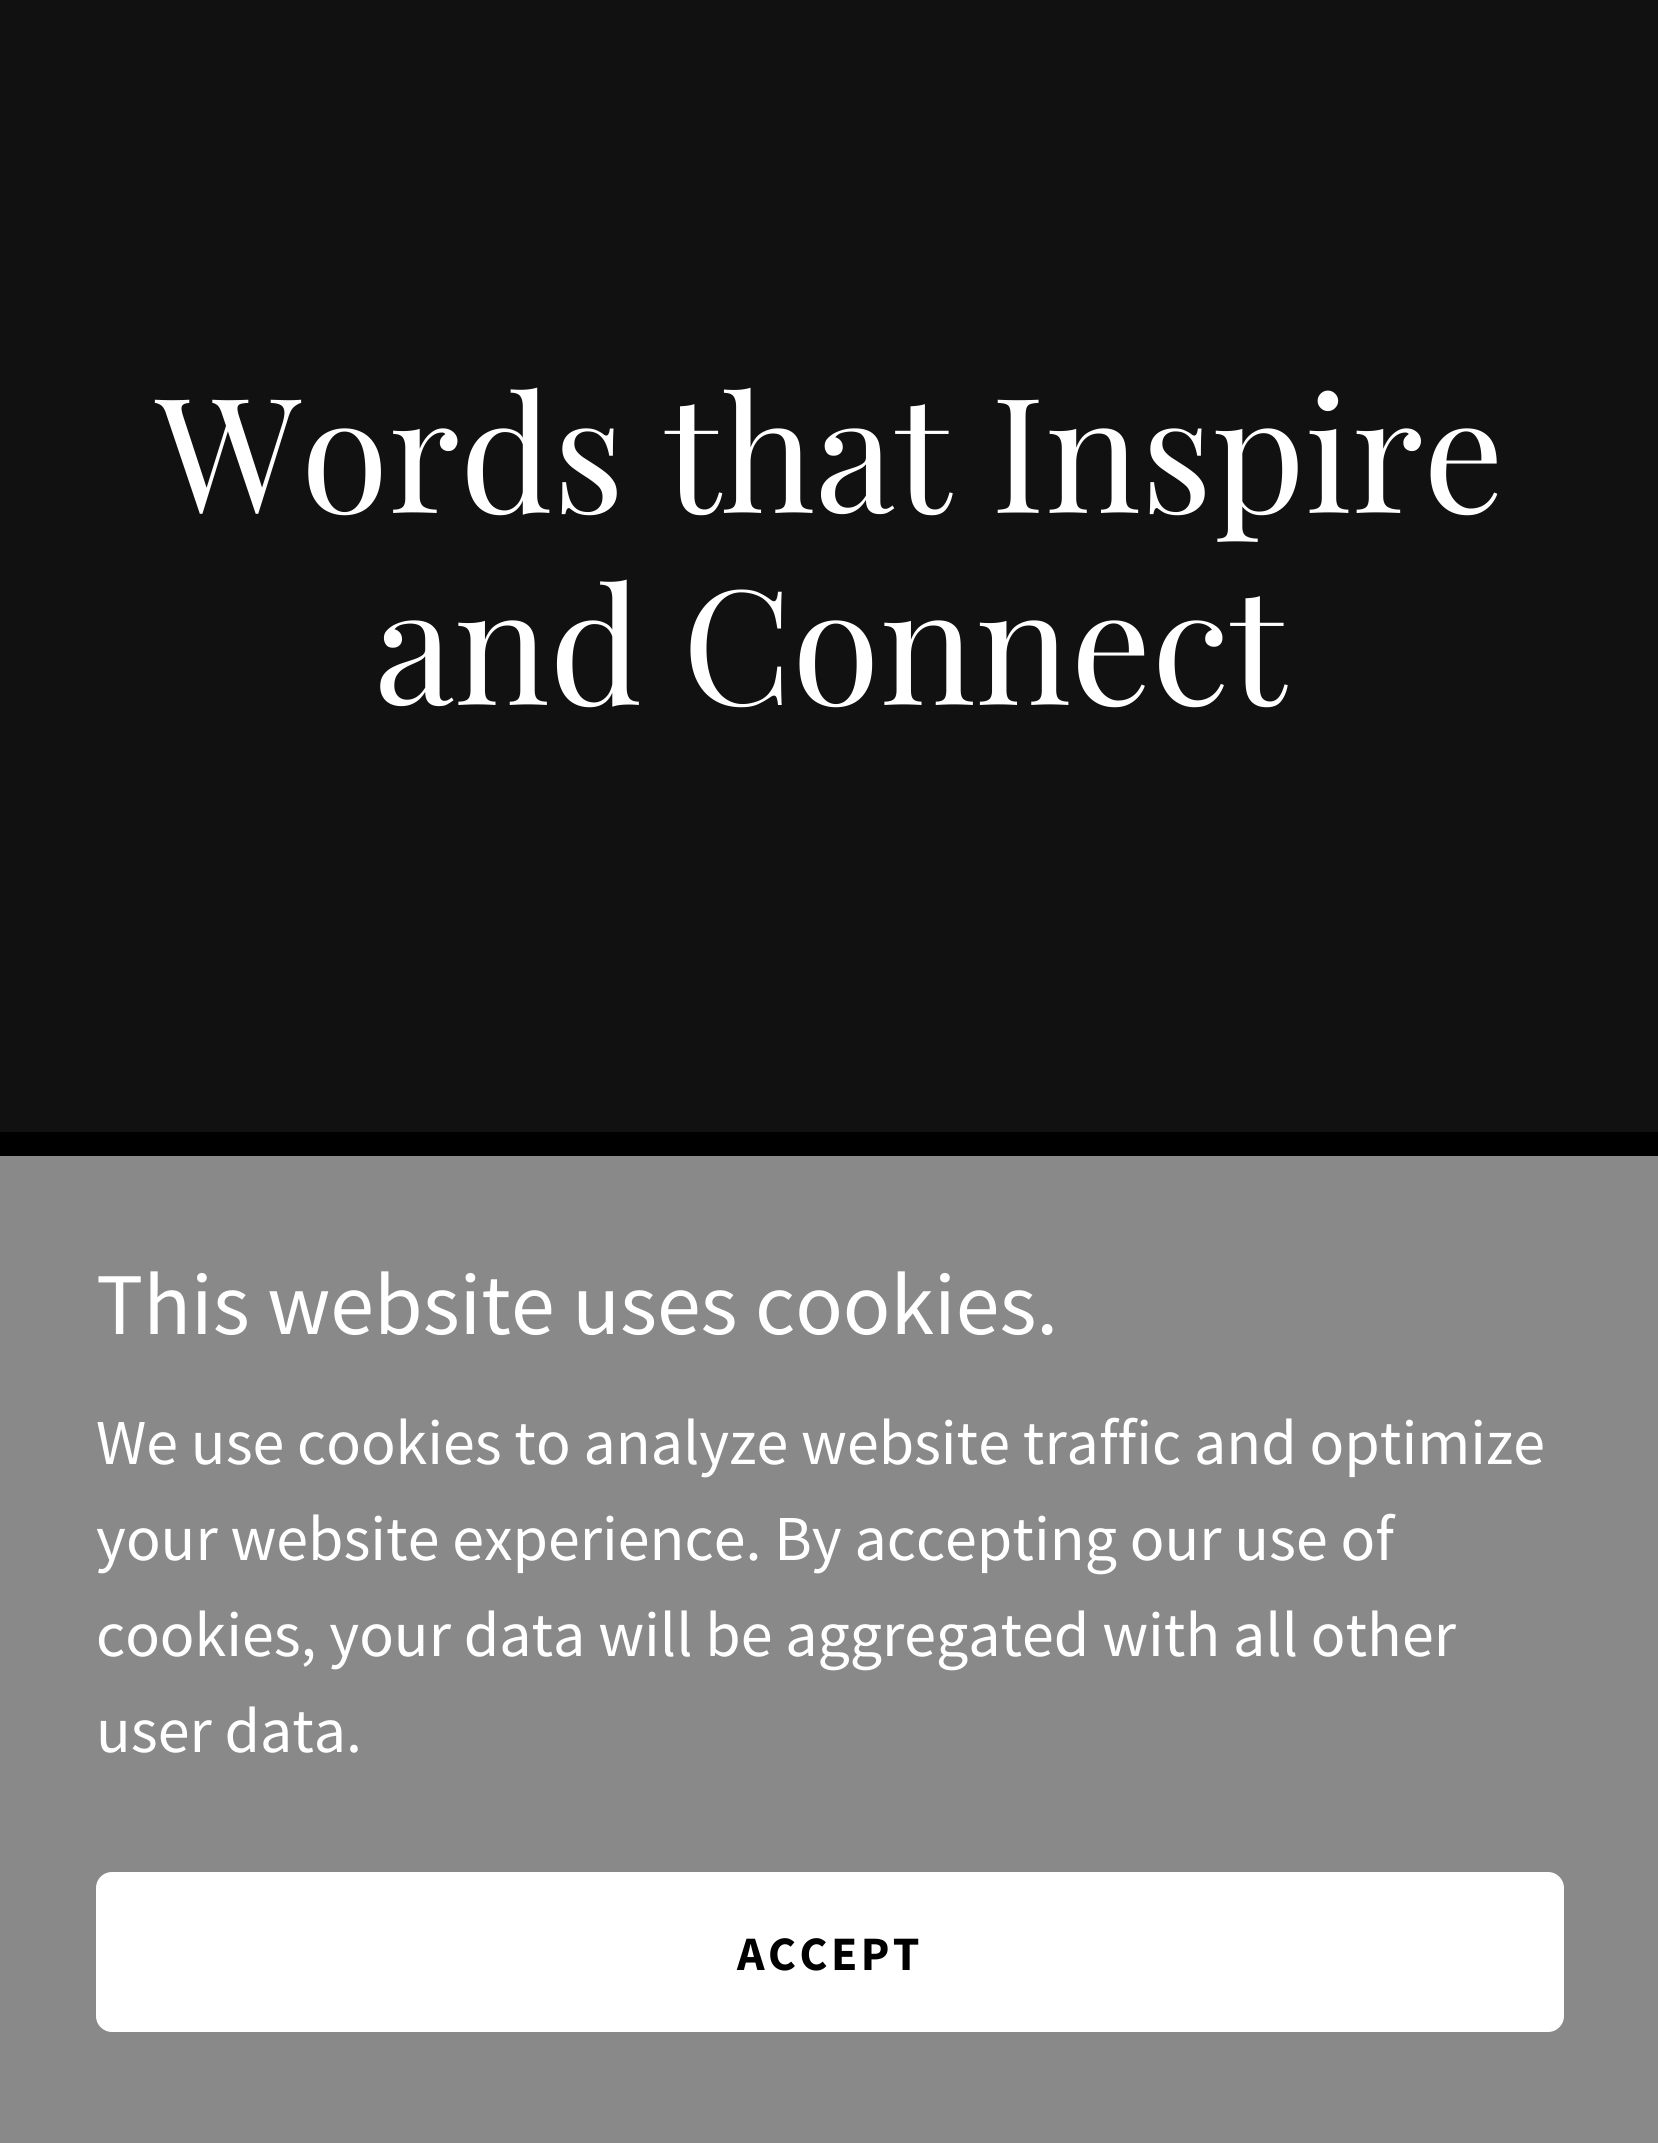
import math
import cairo



def draw_spaced(context, x, y, s, letter, word):
    context.move_to(x, y)
    for ch in s:
        context.show_text(ch)
        context.rel_move_to(letter + word * (ch == ' '), 0)


def rounded_rect(context, x, y, w, h, r):
    context.new_sub_path()
    for i, (u, v) in enumerate([(x + w - r, y + h - r), (x + r, y + h - r), (x + r, y + r), (x + w - r, y + r)]):
        context.arc(u, v, r, i * math.pi / 2, (i + 1) * math.pi / 2)
    context.close_path()


def draw(context):
    context.set_source_rgb(0, 0, 0)
    context.paint()
    context.set_source_rgb(17 / 255, 17 / 255, 17 / 255)
    context.rectangle(0, 0, 1658, 1132)
    context.fill()
    context.set_source_rgb(137 / 255, 137 / 255, 137 / 255)
    context.rectangle(0, 1156, 1658, 987)
    context.fill()
    context.set_source_rgb(1, 1, 1)
    rounded_rect(context, 96, 1872, 1468, 160, 16)
    context.fill()
    context.select_font_face("Playfair Display")
    context.set_font_size(160)
    context.move_to(156, 513)
    context.show_text("Words that Inspire")
    context.move_to(374, 705)
    context.show_text("and Connect")
    context.select_font_face("Source Sans Pro")
    context.set_font_size(88)
    context.move_to(96, 1334)
    context.show_text("This website uses cookies.")
    context.set_font_size(64)
    context.move_to(96, 1464)
    context.show_text("We use cookies to analyze website traffic and optimize")
    context.move_to(96, 1560)
    context.show_text("your website experience. By accepting our use of")
    context.move_to(96, 1656)
    context.show_text("cookies, your data will be aggregated with all other")
    context.move_to(96, 1752)
    context.show_text("user data.")
    context.select_font_face("Source Sans Pro", cairo.FontSlant.NORMAL, cairo.FontWeight.BOLD)
    context.set_font_size(48)
    context.set_source_rgb(0, 0, 0)
    draw_spaced(context, 737, 1970, "ACCEPT", 3.5, 0)


surface = cairo.ImageSurface(cairo.Format.RGB24, 1658, 2143)
context = cairo.Context(surface)
options = cairo.FontOptions()
options.set_hint_metrics(cairo.HintMetrics.OFF)
options.set_hint_style(cairo.HintStyle.NONE)
context.set_font_options(options)
context.set_miter_limit(4)
draw(context)
surface.write_to_png("out.png")
